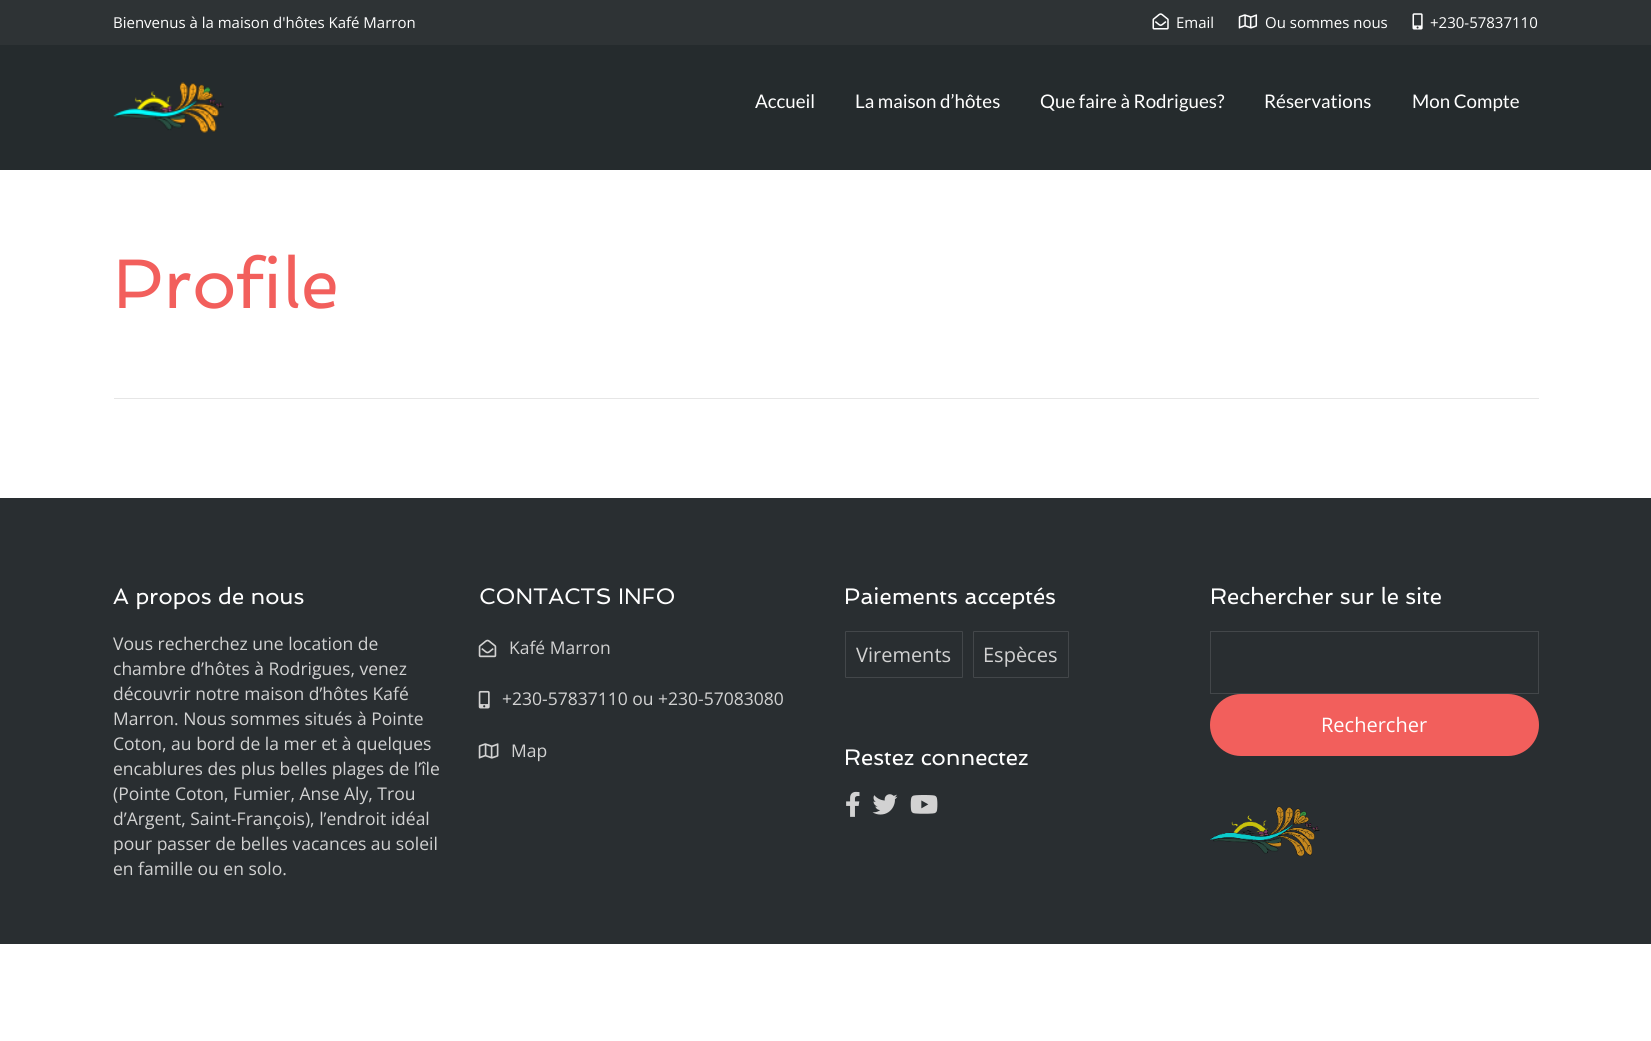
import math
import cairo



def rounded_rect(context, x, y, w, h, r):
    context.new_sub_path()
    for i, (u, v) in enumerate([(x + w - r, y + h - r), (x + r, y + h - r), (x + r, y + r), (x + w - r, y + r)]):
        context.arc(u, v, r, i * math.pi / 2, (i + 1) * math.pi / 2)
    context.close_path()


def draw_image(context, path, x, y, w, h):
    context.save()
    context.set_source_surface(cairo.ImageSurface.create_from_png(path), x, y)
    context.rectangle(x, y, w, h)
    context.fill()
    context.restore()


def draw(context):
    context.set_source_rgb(1, 1, 1)
    context.paint()
    context.set_source_rgb(37 / 255, 43 / 255, 45 / 255)
    context.rectangle(0, 45, 1651, 125)
    context.fill()
    context.set_source_rgb(46 / 255, 51 / 255, 53 / 255)
    context.rectangle(0, 0, 1651, 45)
    context.fill()
    draw_image(context, "images/1.png", 1152, 13, 17, 17)
    draw_image(context, "images/2.png", 1238, 14, 20, 15)
    draw_image(context, "images/3.png", 1412, 13, 11, 17)
    draw_image(context, "images/4.png", 113, 82, 111, 51)
    context.set_source_rgb(230 / 255, 230 / 255, 230 / 255)
    context.rectangle(114, 398, 1425, 1)
    context.fill()
    context.set_source_rgb(41 / 255, 46 / 255, 49 / 255)
    context.rectangle(0, 498, 1651, 446)
    context.fill()
    draw_image(context, "images/5.png", 478, 639, 19, 19)
    draw_image(context, "images/6.png", 478, 690, 12, 19)
    draw_image(context, "images/7.png", 478, 743, 21, 16)
    rounded_rect(context, 845.5, 631.5, 117, 46, 0.5)
    context.set_source_rgb(67 / 255, 71 / 255, 74 / 255)
    context.set_line_width(1)
    context.stroke()
    rounded_rect(context, 973.5, 631.5, 95, 46, 0.5)
    context.stroke()
    draw_image(context, "images/8.png", 846, 791, 14, 26)
    draw_image(context, "images/9.png", 872, 794, 26, 21)
    draw_image(context, "images/10.png", 910, 795, 28, 19)
    context.rectangle(1210.5, 631.5, 328, 62)
    context.stroke()
    context.set_source_rgb(242 / 255, 95 / 255, 92 / 255)
    rounded_rect(context, 1210, 694, 329, 62, 31)
    context.fill()
    draw_image(context, "images/11.png", 1210, 806, 110, 51)
    context.select_font_face("Open Sans")
    context.set_font_size(15)
    context.set_source_rgb(1, 1, 1)
    context.move_to(113, 28)
    context.show_text("Bienvenus à la maison d'hôtes Kafé Marron")
    context.move_to(1176, 28)
    context.show_text("Email")
    context.move_to(1265, 28)
    context.show_text("Ou sommes nous")
    context.move_to(1430, 28)
    context.show_text("+230-57837110")
    context.select_font_face("Lato")
    context.set_font_size(18.75)
    context.move_to(755, 108)
    context.show_text("Accueil")
    context.move_to(855, 108)
    context.show_text("La maison d’hôtes")
    context.move_to(1040, 108)
    context.show_text("Que faire à Rodrigues?")
    context.move_to(1264, 108)
    context.show_text("Réservations")
    context.move_to(1412, 108)
    context.show_text("Mon Compte")
    context.select_font_face("Spinnaker")
    context.set_font_size(70)
    context.set_source_rgb(242 / 255, 95 / 255, 92 / 255)
    context.move_to(113, 308)
    context.show_text("Profile")
    context.set_font_size(22.5)
    context.set_source_rgb(1, 1, 1)
    context.move_to(113, 604)
    context.show_text("A propos de nous")
    context.select_font_face("Open Sans")
    context.set_font_size(17.5)
    context.set_source_rgb(210 / 255, 210 / 255, 210 / 255)
    context.move_to(113, 650)
    context.show_text("Vous recherchez une location de")
    context.move_to(113, 675)
    context.show_text("chambre d’hôtes à Rodrigues, venez")
    context.move_to(113, 700)
    context.show_text("découvrir notre maison d’hôtes Kafé")
    context.move_to(113, 725)
    context.show_text("Marron. Nous sommes situés à Pointe")
    context.move_to(113, 750)
    context.show_text("Coton, au bord de la mer et à quelques")
    context.move_to(113, 775)
    context.show_text("encablures des plus belles plages de l’île")
    context.move_to(113, 800)
    context.show_text("(Pointe Coton, Fumier, Anse Aly, Trou")
    context.move_to(113, 825)
    context.show_text("d’Argent, Saint-François), l’endroit idéal")
    context.move_to(113, 850)
    context.show_text("pour passer de belles vacances au soleil")
    context.move_to(113, 875)
    context.show_text("en famille ou en solo.")
    context.select_font_face("Spinnaker")
    context.set_font_size(22.5)
    context.set_source_rgb(1, 1, 1)
    context.move_to(479, 604)
    context.show_text("CONTACTS INFO")
    context.select_font_face("Open Sans")
    context.set_font_size(17.5)
    context.set_source_rgb(210 / 255, 210 / 255, 210 / 255)
    context.move_to(509, 654)
    context.show_text("Kafé Marron")
    context.move_to(502, 705)
    context.show_text("+230-57837110 ou +230-57083080")
    context.move_to(511, 757)
    context.show_text("Map")
    context.select_font_face("Spinnaker")
    context.set_font_size(22.5)
    context.set_source_rgb(1, 1, 1)
    context.move_to(844, 604)
    context.show_text("Paiements acceptés")
    context.select_font_face("Open Sans")
    context.set_font_size(20)
    context.set_source_rgb(210 / 255, 210 / 255, 210 / 255)
    context.move_to(856, 662)
    context.show_text("Virements")
    context.move_to(983, 662)
    context.show_text("Espèces")
    context.select_font_face("Spinnaker")
    context.set_font_size(22.5)
    context.set_source_rgb(1, 1, 1)
    context.move_to(844, 765)
    context.show_text("Restez connectez")
    context.move_to(1210, 604)
    context.show_text("Rechercher sur le site")
    context.select_font_face("Open Sans")
    context.set_font_size(20)
    context.move_to(1321, 732)
    context.show_text("Rechercher")


surface = cairo.ImageSurface(cairo.Format.RGB24, 1651, 1041)
context = cairo.Context(surface)
options = cairo.FontOptions()
options.set_hint_metrics(cairo.HintMetrics.OFF)
options.set_hint_style(cairo.HintStyle.NONE)
context.set_font_options(options)
context.set_miter_limit(4)
draw(context)
surface.write_to_png("out.png")
